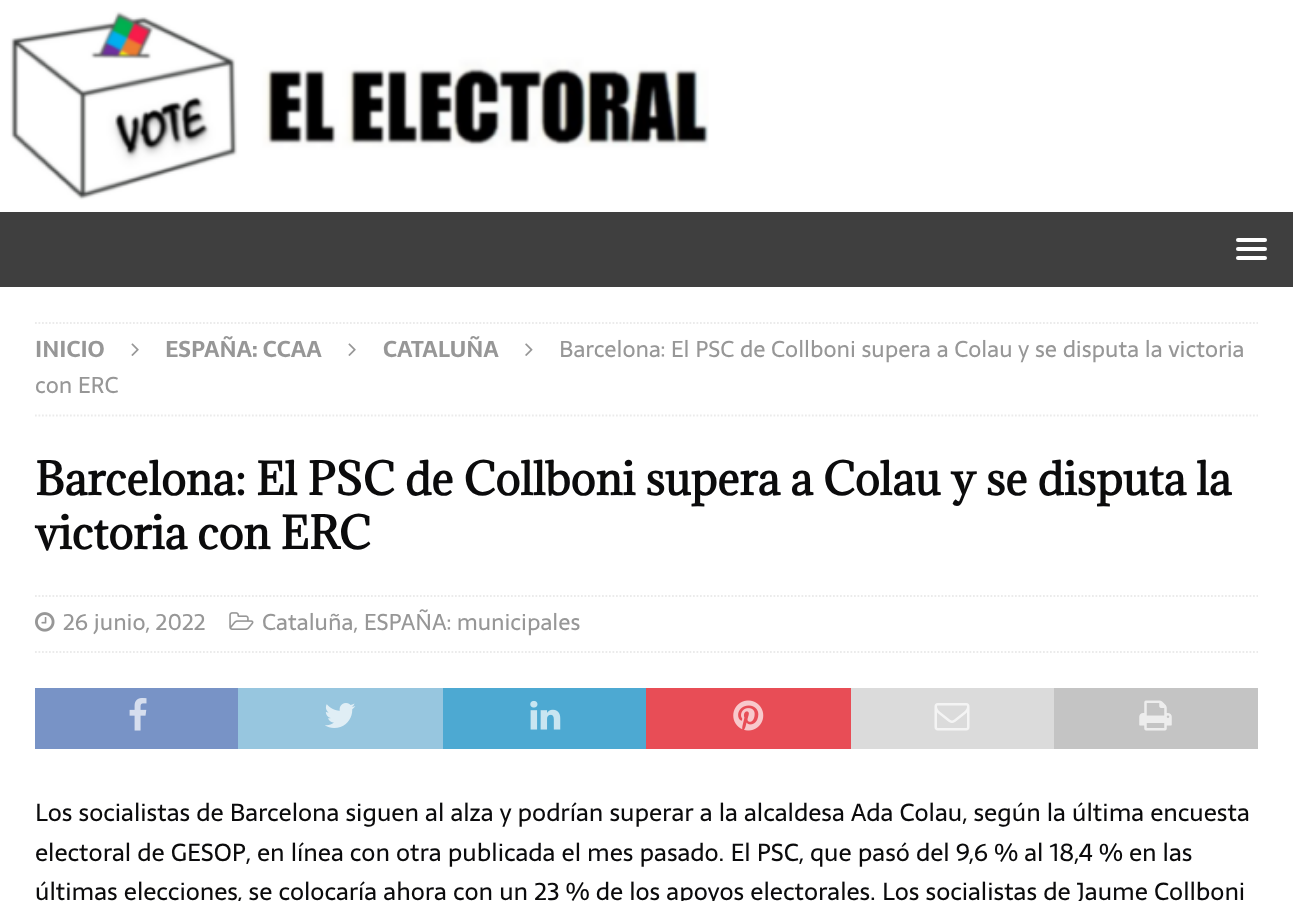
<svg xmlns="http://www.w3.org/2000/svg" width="1293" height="901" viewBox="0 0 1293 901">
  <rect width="100%" height="100%" fill="#fff"/>
  <image x="10" y="11" width="699" height="189" href="img/1.png"/>
  <path d="M0 212h1293v75H0z" fill="#3f3f3f"/>
  <rect x="1236" y="238" width="31" height="4" rx="2" fill="#fff"/>
  <rect x="1236" y="247" width="31" height="4" rx="2" fill="#fff"/>
  <rect x="1236" y="256" width="31" height="4" rx="2" fill="#fff"/>
  <path d="M35 323H1258" fill="none" stroke="#ebebeb" stroke-width="1.8" stroke-dasharray="1.75 1.75"/>
  <path d="M35 415.5H1258" fill="none" stroke="#ebebeb" stroke-width="1.8" stroke-dasharray="1.75 1.75"/>
  <image x="131" y="343" width="8" height="13" href="img/2.png"/>
  <image x="348" y="343" width="8" height="13" href="img/2.png"/>
  <image x="525" y="343" width="8" height="13" href="img/3.png"/>
  <path d="M35 596H1258" fill="none" stroke="#ebebeb" stroke-width="1.8" stroke-dasharray="1.75 1.75"/>
  <path d="M35 652H1258" fill="none" stroke="#ebebeb" stroke-width="1.8" stroke-dasharray="1.75 1.75"/>
  <image x="35" y="612" width="20" height="20" href="img/4.png"/>
  <image x="229" y="612" width="25" height="18" href="img/5.png"/>
  <path d="M35 688h203v61H35z" fill="#7893c6"/>
  <image x="129" y="698" width="18" height="33" href="img/6.png"/>
  <path d="M238 688h205v61H238z" fill="#97c6df"/>
  <image x="325" y="703" width="31" height="25" href="img/7.png"/>
  <path d="M443 688h203v61H443z" fill="#4da9d2"/>
  <image x="530" y="700" width="31" height="30" href="img/8.png"/>
  <path d="M646 688h205v61H646z" fill="#e84d56"/>
  <image x="733" y="700" width="31" height="31" href="img/9.png"/>
  <path d="M851 688h203v61H851z" fill="#dbdbdb"/>
  <image x="934" y="703" width="36" height="28" href="img/10.png"/>
  <path d="M1054 688h204v61H1054z" fill="#c4c4c4"/>
  <image x="1139" y="700" width="33" height="31" href="img/11.png"/>
  <g font-family="Sarala" font-size="22.75" font-weight="bold" fill="#979797">
    <text x="35" y="357">INICIO</text>
    <text x="165" y="357">ESPAÑA: CCAA</text>
    <text x="383" y="357">CATALUÑA</text>
  </g>
  <g font-family="Sarala" font-size="22.75" fill="#979797">
    <text x="559" y="357">Barcelona: El PSC de Collboni supera a Colau y se disputa la victoria</text>
    <text x="35" y="393">con ERC</text>
  </g>
  <g font-family="Adamina" font-size="42" font-weight="bold" fill="#0b0b0c">
    <text x="35" y="495">Barcelona: El PSC de Collboni supera a Colau y se disputa la</text>
    <text x="35" y="549">victoria con ERC</text>
  </g>
  <g font-family="Sarala" font-size="22.75" fill="#979797">
    <text x="63" y="630">26 junio, 2022</text>
    <text x="262" y="630">Cataluña, ESPAÑA: municipales</text>
  </g>
  <g font-family="Sarala" font-size="24.5" fill="#0b0b0c">
    <text x="35" y="821">Los socialistas de Barcelona siguen al alza y podrían superar a la alcaldesa Ada Colau, según la última encuesta</text>
    <text x="35" y="861">electoral de GESOP, en línea con otra publicada el mes pasado. El PSC, que pasó del 9,6 % al 18,4 % en las</text>
    <text x="35" y="900">últimas elecciones, se colocaría ahora con un 23 % de los apoyos electorales. Los socialistas de Jaume Collboni</text>
  </g>
</svg>
